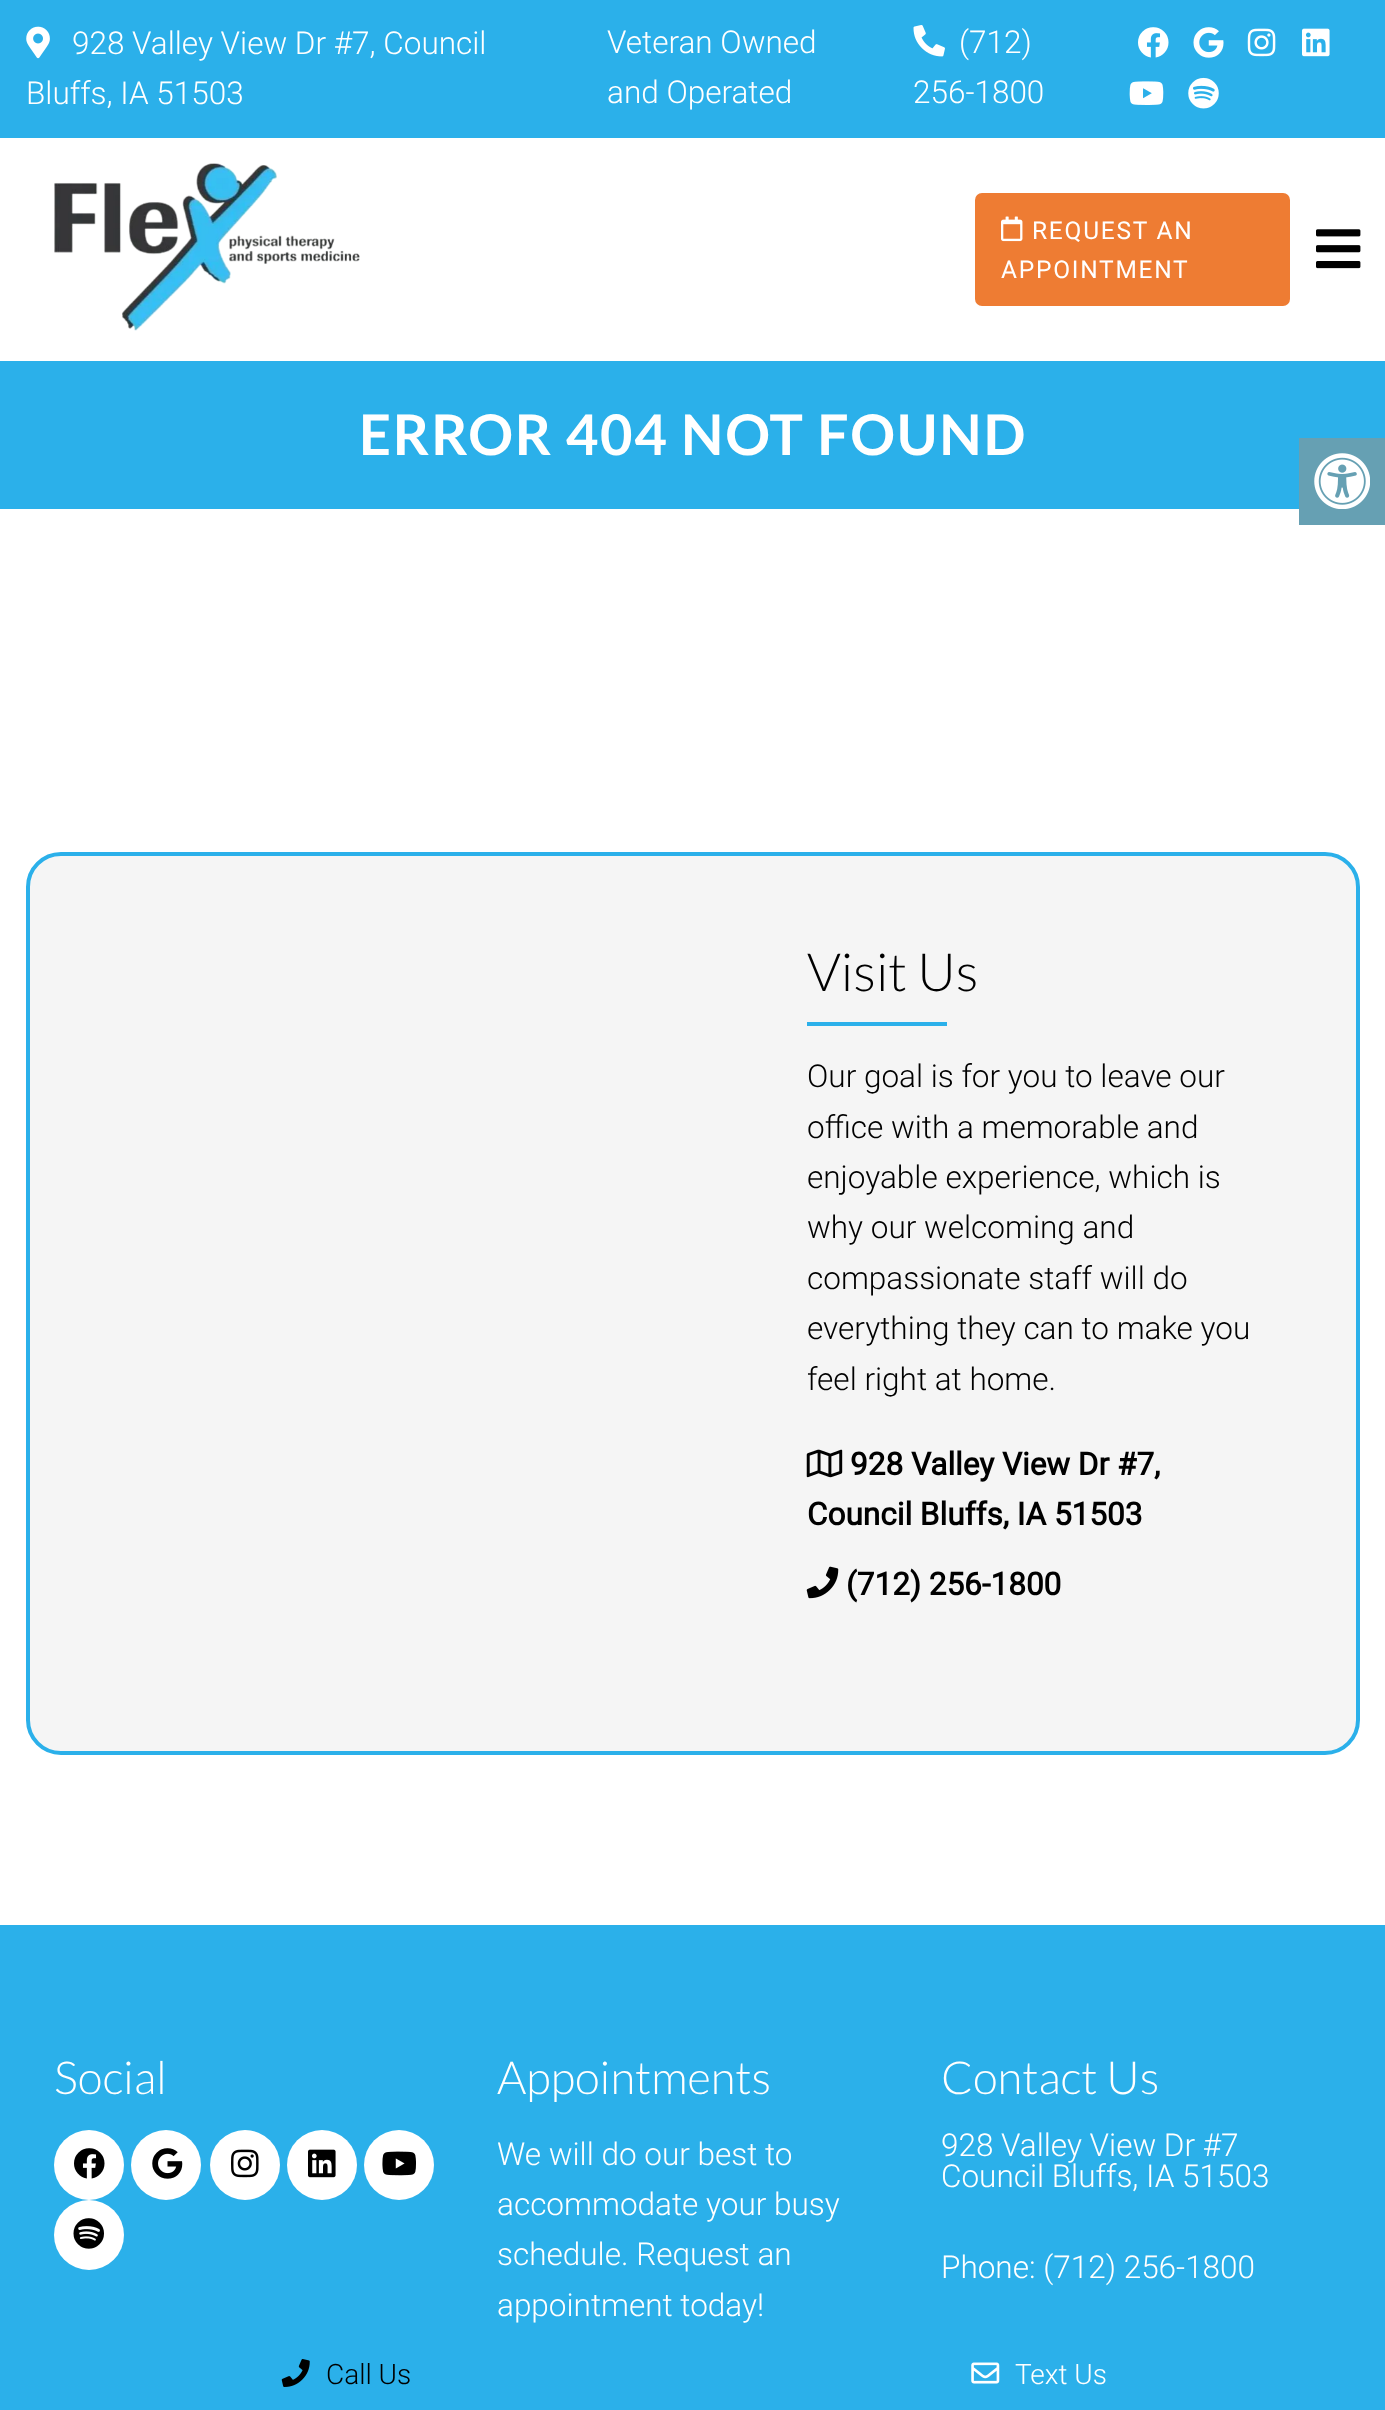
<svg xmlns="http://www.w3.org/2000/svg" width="1385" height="2410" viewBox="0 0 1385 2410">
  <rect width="100%" height="100%" fill="#fff"/>
  <path d="M0 0h1385v138H0z" fill="#2bb0ea"/>
  <image x="26" y="26" width="24" height="33" href="img/1.png"/>
  <image x="913" y="25" width="32" height="32" href="img/2.png"/>
  <image x="1138" y="27" width="31" height="31" href="img/3.png"/>
  <image x="1193" y="27" width="31" height="31" href="img/4.png"/>
  <image x="1247" y="28" width="29" height="29" href="img/5.png"/>
  <image x="1302" y="28" width="28" height="29" href="img/6.png"/>
  <image x="1129" y="81" width="35" height="24" href="img/7.png"/>
  <image x="1188" y="77" width="31" height="32" href="img/8.png"/>
  <image x="54" y="163" width="306" height="168" href="img/9.png"/>
  <rect x="975" y="193" width="315" height="113" rx="7" fill="#ee7c33"/>
  <image x="1001" y="216" width="22" height="26" href="img/10.png"/>
  <image x="1316" y="229" width="45" height="40" href="img/11.png"/>
  <path d="M0 361h1385v148H0z" fill="#2bb0ea"/>
  <rect x="28" y="854" width="1330" height="899" rx="33" fill="#f5f5f5" stroke="#2bb0ea" stroke-width="4"/>
  <path d="M807 1022h140v4H807z" fill="#2bb0ea"/>
  <image x="806" y="1449" width="37" height="29" href="img/12.png"/>
  <image x="806" y="1566" width="33" height="33" href="img/13.png"/>
  <path d="M0 1925h1385v413H0z" fill="#2bb0ea"/>
  <circle cx="89" cy="2165" r="35" fill="#fff"/>
  <image x="74" y="2148" width="31" height="31" href="img/14.png"/>
  <circle cx="166" cy="2165" r="35" fill="#fff"/>
  <image x="152" y="2148" width="31" height="31" href="img/15.png"/>
  <circle cx="245" cy="2165" r="35" fill="#fff"/>
  <image x="231" y="2149" width="28" height="29" href="img/16.png"/>
  <circle cx="322" cy="2165" r="35" fill="#fff"/>
  <image x="308" y="2149" width="28" height="29" href="img/17.png"/>
  <circle cx="399" cy="2165" r="35" fill="#fff"/>
  <image x="382" y="2151" width="34" height="25" href="img/18.png"/>
  <circle cx="89" cy="2235" r="35" fill="#fff"/>
  <image x="73" y="2218" width="31" height="31" href="img/19.png"/>
  <path d="M1299 438h86v87H1299z" fill="#66a0b3"/>
  <image x="1314" y="453" width="56" height="56" href="img/20.png"/>
  <path d="M0 2338h1385v72H0z" fill="#2bb0ea"/>
  <image x="281" y="2359" width="29" height="28" href="img/21.png"/>
  <image x="971" y="2362" width="29" height="22" href="img/22.png"/>
  <g font-family="Roboto" font-size="31.5" font-weight="300" fill="#fff">
    <text x="72" y="54">928 Valley View Dr #7, Council</text>
    <text x="26" y="104">Bluffs, IA 51503</text>
    <text x="607" y="53">Veteran Owned</text>
    <text x="607" y="103">and Operated</text>
    <text x="959" y="53">(712)</text>
    <text x="913" y="103">256-1800</text>
  </g>
  <g font-family="Roboto" font-size="24.5" letter-spacing="1.75" fill="#fff">
    <text x="1032" y="239">REQUEST AN</text>
    <text x="1001" y="278">APPOINTMENT</text>
  </g>
  <text x="359" y="455" font-family="Lato" font-size="56" font-weight="bold" letter-spacing="1.75" fill="#fff">ERROR 404 NOT FOUND</text>
  <text x="807" y="991" font-family="Lato" font-size="52.5" font-weight="300" fill="#000">Visit Us</text>
  <g font-family="Roboto" font-size="31.5" font-weight="300" fill="#000">
    <text x="807" y="1087">Our goal is for you to leave our</text>
    <text x="807" y="1138">office with a memorable and</text>
    <text x="807" y="1188">enjoyable experience, which is</text>
    <text x="807" y="1238">why our welcoming and</text>
    <text x="807" y="1289">compassionate staff will do</text>
    <text x="807" y="1339">everything they can to make you</text>
    <text x="807" y="1390">feel right at home.</text>
  </g>
  <g font-family="Roboto" font-size="31.5" font-weight="bold" fill="#000">
    <text x="850" y="1475">928 Valley View Dr #7,</text>
    <text x="807" y="1525">Council Bluffs, IA 51503</text>
    <text x="846" y="1595">(712) 256-1800</text>
  </g>
  <g font-family="Lato" font-size="45.5" font-weight="300" fill="#fff">
    <text x="54" y="2094">Social</text>
    <text x="497" y="2094">Appointments</text>
  </g>
  <g font-family="Roboto" font-size="31.5" font-weight="300" fill="#fff">
    <text x="497" y="2165">We will do our best to</text>
    <text x="497" y="2215">accommodate your busy</text>
    <text x="497" y="2265">schedule. Request an</text>
    <text x="497" y="2316">appointment today!</text>
  </g>
  <text x="941" y="2094" font-family="Lato" font-size="45.5" font-weight="300" fill="#fff">Contact Us</text>
  <g font-family="Roboto" font-size="31.5" font-weight="300" fill="#fff">
    <text x="941" y="2156">928 Valley View Dr #7</text>
    <text x="941" y="2187">Council Bluffs, IA 51503</text>
    <text x="941" y="2278">Phone: (712) 256-1800</text>
  </g>
  <text x="326" y="2384" font-family="Roboto" font-size="28" font-weight="300" fill="#000">Call Us</text>
  <text x="1015" y="2384" font-family="Roboto" font-size="28" font-weight="300" fill="#fff">Text Us</text>
</svg>
